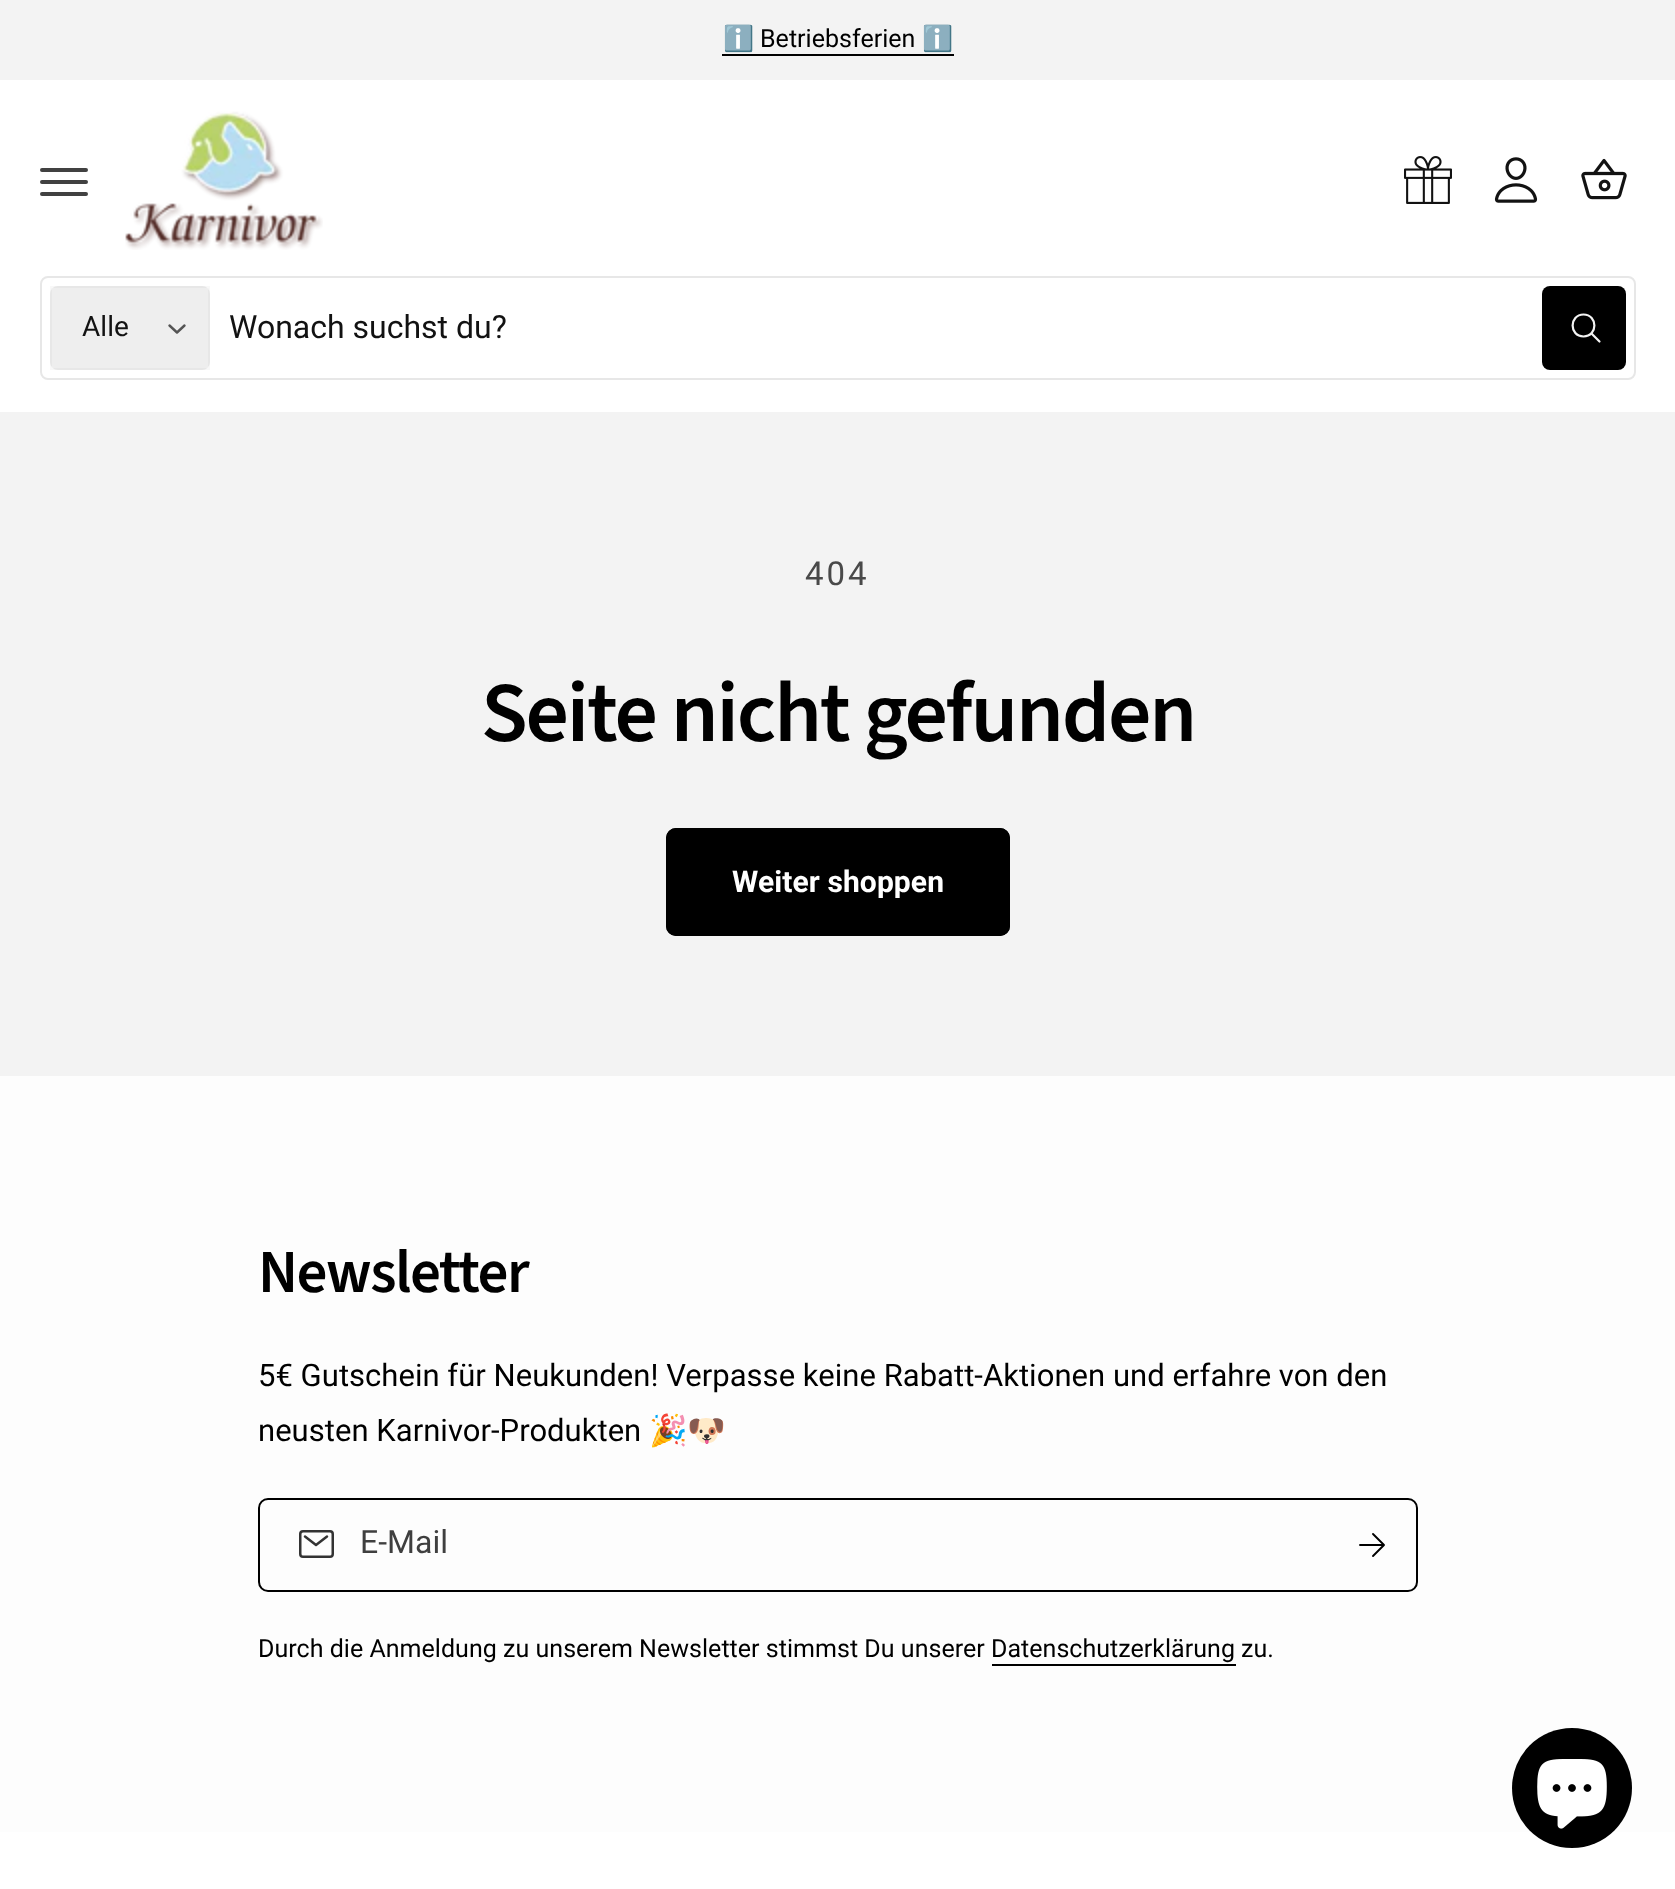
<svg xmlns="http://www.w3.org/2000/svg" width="1675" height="1889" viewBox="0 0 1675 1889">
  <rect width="100%" height="100%" fill="#f3f3f3"/>
  <path d="M722 54h232v2H722z" fill="#000"/>
  <path d="M0 80h1675v332H0z" fill="#fff"/>
  <path d="M42 170H86M42 182H86M42 194H86" fill="none" stroke="#414141" stroke-width="4" stroke-linecap="round"/>
  <image x="125" y="111" width="198" height="139" href="img/1.png"/>
  <image x="1404" y="156" width="48" height="48" href="img/2.png"/>
  <image x="1494" y="157" width="44" height="46" href="img/3.png"/>
  <image x="1581" y="158" width="46" height="42" href="img/4.png"/>
  <rect x="50" y="286" width="160" height="84" rx="8" fill="#eee"/>
  <path d="M51 287h158v82H51z" fill="none" stroke="#12121208" stroke-width="2"/>
  <path d="M169.5 325.5L177 332.5L184.5 325.5" fill="none" stroke="#545454" stroke-width="2.4" stroke-linecap="round" stroke-linejoin="round"/>
  <rect x="1542" y="286" width="84" height="84" rx="8" fill="#000"/>
  <path d="M1583.5 314.5C1569 314.5 1569 336.5 1583.5 336.5C1598 336.5 1598 314.5 1583.5 314.5Z" fill="none" stroke="#f3f3f3" stroke-width="2.2"/>
  <path d="M1592 334L1599.5 341.5" fill="none" stroke="#f3f3f3" stroke-width="2.2" stroke-linecap="round"/>
  <rect x="41" y="277" width="1594" height="102" rx="7" fill="none" stroke="#e7e7e7" stroke-width="2"/>
  <rect x="666" y="828" width="344" height="108" rx="10" fill="#000"/>
  <rect x="667" y="829" width="342" height="106" rx="9" fill="none" stroke="#000" stroke-width="2"/>
  <path d="M0 1076h1675v756H0z" fill="#fdfdfd"/>
  <rect x="300.25" y="1531.25" width="32.5" height="25.5" rx="2.75" fill="none" stroke="#333" stroke-width="2.5"/>
  <path d="M305 1536.5L316 1545L327 1536.5" fill="none" stroke="#333" stroke-width="2.5" stroke-linecap="round" stroke-linejoin="round"/>
  <rect x="259" y="1499" width="1158" height="92" rx="9" fill="none" stroke="#000" stroke-width="2"/>
  <path d="M1373 1534L1384 1545L1373 1556M1382.5 1545H1360" fill="none" stroke="#000" stroke-width="1.9" stroke-linecap="round" stroke-linejoin="round"/>
  <path d="M992 1664h244v2H992z" fill="#000"/>
  <path d="M0 1832h1675v57H0z" fill="#fff"/>
  <circle cx="1572" cy="1788" r="60" fill="#000"/>
  <image x="1537" y="1759" width="70" height="70" href="img/5.png"/>
  <text x="723" y="47" font-family="Noto Color Emoji" font-size="25" letter-spacing="0.03" fill="#000">ℹ️</text>
  <text x="760" y="47" font-family="Roboto" font-size="25" letter-spacing="0.03" fill="#000">Betriebsferien</text>
  <text x="922" y="47" font-family="Noto Color Emoji" font-size="25" letter-spacing="0.03" fill="#000">ℹ️</text>
  <text x="82" y="336" font-family="Roboto" font-size="28" letter-spacing="0.03" fill="#121212">Alle</text>
  <text x="229" y="338" font-family="Roboto" font-size="32" fill="#121212">Wonach suchst du?</text>
  <text x="805" y="585" font-family="Roboto" font-size="33" letter-spacing="3" fill="#494949">404</text>
  <text x="481" y="741" font-family="Source Sans Pro" font-size="85.75" font-weight="600" letter-spacing="-2.2" fill="#000">Seite nicht gefunden</text>
  <text x="732" y="892" font-family="Roboto" font-size="30" font-weight="bold" letter-spacing="0.1" fill="#fff">Weiter shoppen</text>
  <text x="258" y="1292" font-family="Source Sans Pro" font-size="61" font-weight="600" letter-spacing="-1.5" fill="#000">Newsletter</text>
  <g font-family="Roboto" font-size="31" letter-spacing="0.03" fill="#000">
    <text x="258" y="1386">5€ Gutschein für Neukunden! Verpasse keine Rabatt-Aktionen und erfahre von den</text>
    <text x="258" y="1441">neusten Karnivor-Produkten</text>
  </g>
  <text x="649" y="1441" font-family="Noto Color Emoji" font-size="31" letter-spacing="0.03" fill="#000">🎉🐶</text>
  <text x="360" y="1553" font-family="Roboto" font-size="32" fill="#3f3f3f">E-Mail</text>
  <g font-family="Roboto" font-size="25" letter-spacing="0.03" fill="#000">
    <text x="258" y="1657">Durch die Anmeldung zu unserem Newsletter stimmst Du unserer Datenschutzerklärung</text>
    <text x="1241" y="1657">zu.</text>
  </g>
</svg>
